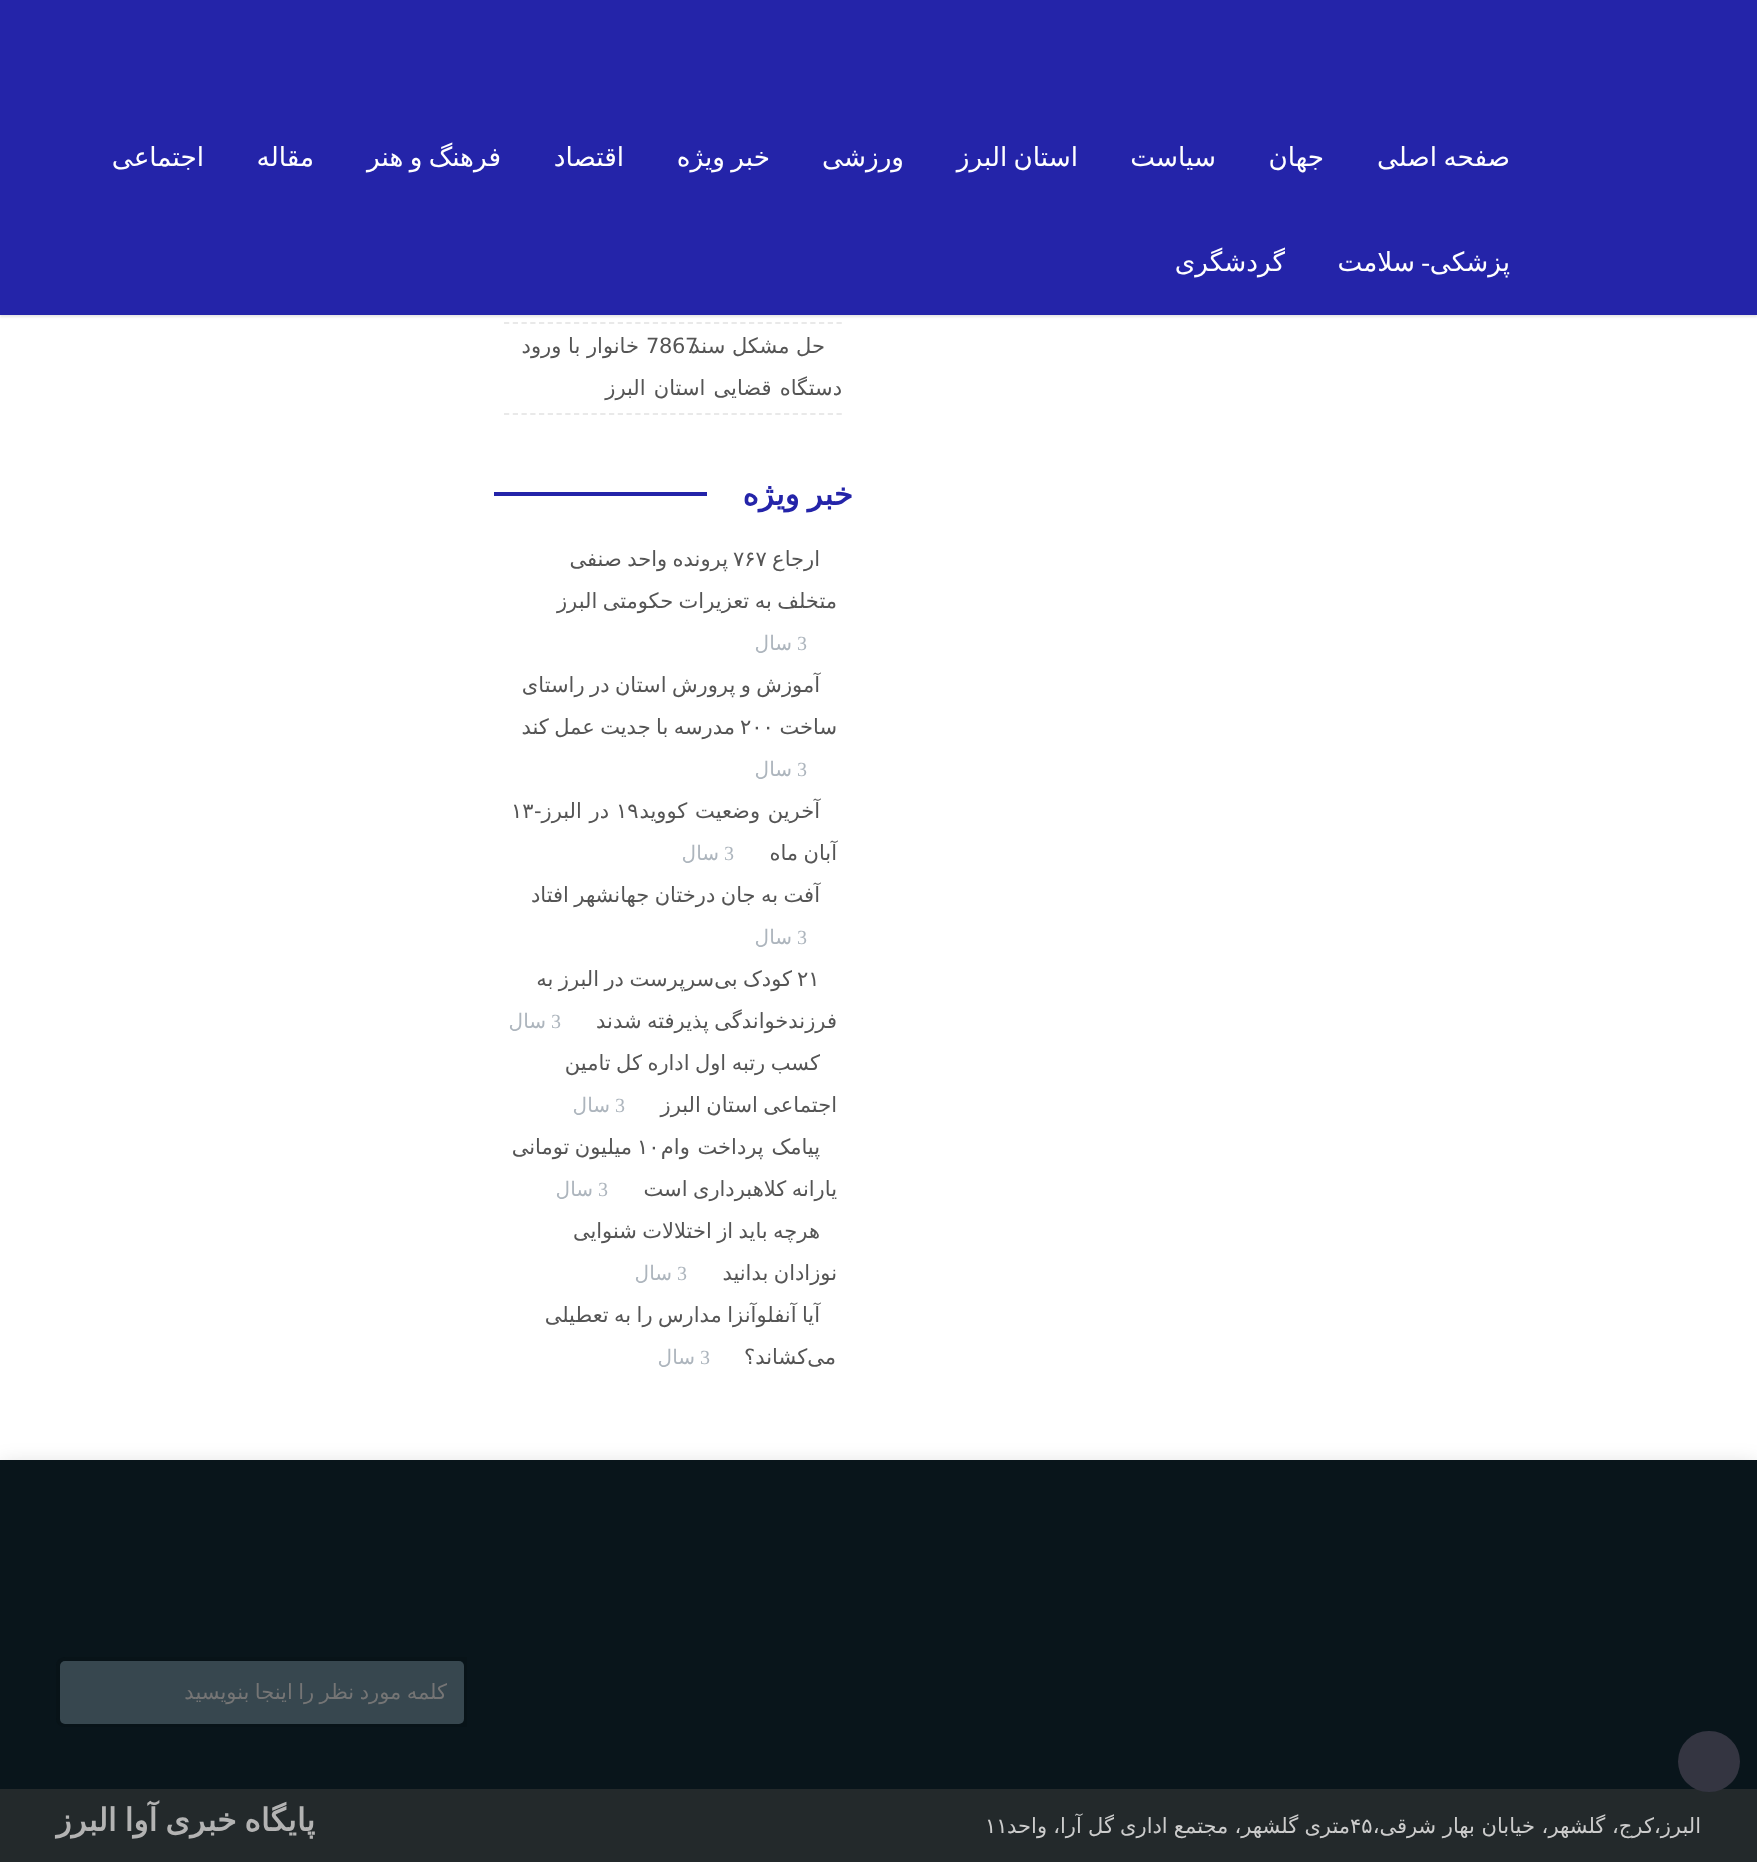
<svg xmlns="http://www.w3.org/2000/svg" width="1757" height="1862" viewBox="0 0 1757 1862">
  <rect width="100%" height="100%" fill="#fff"/>
  <path d="M0 1465h1757v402H0z" fill="#00000029" filter="blur(10.5px)"/>
  <path d="M0 1460h1757v329H0z" fill="#09151b"/>
  <path d="M0 1789h1757v73H0z" fill="#23292b"/>
  <rect x="1678" y="1731" width="62" height="61" rx="30.5" fill="#343541"/>
  <path d="M0 2h1757v315H0z" fill="#0000001a" filter="blur(1px)"/>
  <path d="M0 0h1757v315H0z" fill="#2424a9"/>
  <path d="M504 323H842" fill="none" stroke="#e9e9e9" stroke-width="1.8" stroke-dasharray="5.25 3.5"/>
  <path d="M504 414H842" fill="none" stroke="#e9e9e9" stroke-width="1.8" stroke-dasharray="5.25 3.5"/>
  <path d="M494 492h213v4H494z" fill="#2424a9"/>
  <path d="M65 1659H465V1725H65C61 1725 58 1722 58 1718V1666C58 1662 61 1659 65 1659Z" fill="none" stroke="#081318" stroke-width="4"/>
  <rect x="60" y="1661" width="404" height="63" rx="5" fill="#37474f"/>
  <g font-family="DejaVu Sans" font-size="26.25" direction="rtl" fill="#fff">
    <text x="1510" y="166" word-spacing="-2">صفحه اصلی</text>
    <text x="1324" y="166">جهان</text>
    <text x="1216" y="166">سیاست</text>
    <text x="1078" y="166" word-spacing="-2">استان البرز</text>
    <text x="904" y="166">ورزشی</text>
    <text x="770" y="166" word-spacing="-2">خبر ویژه</text>
    <text x="624" y="166">اقتصاد</text>
    <text x="501" y="166" word-spacing="-2">فرهنگ و هنر</text>
    <text x="314" y="166">مقاله</text>
    <text x="204" y="166">اجتماعی</text>
    <text x="1510" y="271">پزشکی</text>
  </g>
  <text x="1430" y="271" font-family="Liberation Serif" font-size="26.25" direction="rtl" fill="#fff">-</text>
  <g font-family="DejaVu Sans" font-size="26.25" direction="rtl" fill="#fff">
    <text x="1415" y="271">سلامت</text>
    <text x="1285" y="271">گردشگری</text>
  </g>
  <text x="646" y="353" font-family="DejaVu Sans" font-size="21" letter-spacing="-0.35" fill="#555">7867</text>
  <g font-family="DejaVu Sans" font-size="21" letter-spacing="-0.35" direction="rtl" fill="#555">
    <text x="825" y="353">حل مشکل سند</text>
    <text x="639" y="353">خانوار با ورود</text>
    <text x="842" y="395" word-spacing="1.5">دستگاه قضایی استان البرز</text>
  </g>
  <text x="853" y="505" word-spacing="-2" font-family="DejaVu Sans" font-size="31" font-weight="bold" direction="rtl" fill="#2424a9">خبر ویژه</text>
  <text x="820" y="566" font-family="DejaVu Sans" font-size="21" direction="rtl" fill="#555">ارجاع</text>
  <text x="733" y="566" font-family="DejaVu Sans" font-size="21" fill="#555">۷۶۷</text>
  <g font-family="DejaVu Sans" font-size="21" direction="rtl" fill="#555">
    <text x="728" y="566" word-spacing="-1.25">پرونده واحد صنفی</text>
    <text x="837" y="608" word-spacing="-1.25">متخلف به تعزیرات حکومتی البرز</text>
  </g>
  <text x="797" y="650" font-family="Liberation Serif" font-size="20" fill="#adb5bd">3</text>
  <text x="792" y="650" font-family="DejaVu Sans" font-size="20" direction="rtl" fill="#adb5bd">سال</text>
  <g font-family="DejaVu Sans" font-size="21" direction="rtl" fill="#555">
    <text x="820" y="692" word-spacing="-1.25">آموزش و پرورش استان در راستای</text>
    <text x="837" y="734">ساخت</text>
  </g>
  <text x="740" y="734" font-family="DejaVu Sans" font-size="21" fill="#555">۲۰۰</text>
  <text x="735" y="734" word-spacing="-1.25" font-family="DejaVu Sans" font-size="21" direction="rtl" fill="#555">مدرسه با جدیت عمل کند</text>
  <text x="797" y="776" font-family="Liberation Serif" font-size="20" fill="#adb5bd">3</text>
  <text x="792" y="776" font-family="DejaVu Sans" font-size="20" direction="rtl" fill="#adb5bd">سال</text>
  <text x="820" y="818" word-spacing="1" font-family="DejaVu Sans" font-size="21" direction="rtl" fill="#555">آخرین وضعیت کووید</text>
  <text x="616" y="818" font-family="DejaVu Sans" font-size="21" fill="#555">۱۹</text>
  <text x="609" y="818" word-spacing="1" font-family="DejaVu Sans" font-size="21" direction="rtl" fill="#555">در البرز-</text>
  <text x="511" y="818" font-family="DejaVu Sans" font-size="21" fill="#555">۱۳</text>
  <text x="837" y="860" word-spacing="-1.25" font-family="DejaVu Sans" font-size="21" direction="rtl" fill="#555">آبان ماه</text>
  <text x="724" y="860" font-family="Liberation Serif" font-size="20" fill="#adb5bd">3</text>
  <text x="719" y="860" font-family="DejaVu Sans" font-size="20" direction="rtl" fill="#adb5bd">سال</text>
  <text x="820" y="902" word-spacing="-1.25" font-family="DejaVu Sans" font-size="21" direction="rtl" fill="#555">آفت به جان درختان جهانشهر افتاد</text>
  <text x="797" y="944" font-family="Liberation Serif" font-size="20" fill="#adb5bd">3</text>
  <text x="792" y="944" font-family="DejaVu Sans" font-size="20" direction="rtl" fill="#adb5bd">سال</text>
  <text x="792" y="986" word-spacing="-1.25" font-family="DejaVu Sans" font-size="21" direction="rtl" fill="#555">کودک بی‌سرپرست در البرز به</text>
  <text x="797" y="986" font-family="DejaVu Sans" font-size="21" fill="#555">۲۱</text>
  <text x="837" y="1028" word-spacing="-1.25" font-family="DejaVu Sans" font-size="21" direction="rtl" fill="#555">فرزندخواندگی پذیرفته شدند</text>
  <text x="551" y="1028" font-family="Liberation Serif" font-size="20" fill="#adb5bd">3</text>
  <text x="546" y="1028" font-family="DejaVu Sans" font-size="20" direction="rtl" fill="#adb5bd">سال</text>
  <g font-family="DejaVu Sans" font-size="21" direction="rtl" fill="#555">
    <text x="820" y="1070" word-spacing="-1.25">کسب رتبه اول اداره کل تامین</text>
    <text x="837" y="1112" word-spacing="-1.25">اجتماعی استان البرز</text>
  </g>
  <text x="615" y="1112" font-family="Liberation Serif" font-size="20" fill="#adb5bd">3</text>
  <text x="610" y="1112" font-family="DejaVu Sans" font-size="20" direction="rtl" fill="#adb5bd">سال</text>
  <text x="820" y="1154" word-spacing="1" font-family="DejaVu Sans" font-size="21" direction="rtl" fill="#555">پیامک پرداخت وام</text>
  <text x="637" y="1154" font-family="DejaVu Sans" font-size="21" fill="#555">۱۰</text>
  <g font-family="DejaVu Sans" font-size="21" direction="rtl" fill="#555">
    <text x="632" y="1154" word-spacing="-1.25">میلیون تومانی</text>
    <text x="837" y="1196" word-spacing="-1.25">یارانه کلاهبرداری است</text>
  </g>
  <text x="598" y="1196" font-family="Liberation Serif" font-size="20" fill="#adb5bd">3</text>
  <text x="593" y="1196" font-family="DejaVu Sans" font-size="20" direction="rtl" fill="#adb5bd">سال</text>
  <g font-family="DejaVu Sans" font-size="21" direction="rtl" fill="#555">
    <text x="820" y="1238" word-spacing="-1.25">هرچه باید از اختلالات شنوایی</text>
    <text x="837" y="1280" word-spacing="-1.25">نوزادان بدانید</text>
  </g>
  <text x="677" y="1280" font-family="Liberation Serif" font-size="20" fill="#adb5bd">3</text>
  <text x="672" y="1280" font-family="DejaVu Sans" font-size="20" direction="rtl" fill="#adb5bd">سال</text>
  <g font-family="DejaVu Sans" font-size="21" direction="rtl" fill="#555">
    <text x="820" y="1322" word-spacing="-1.25">آیا آنفلوآنزا مدارس را به تعطیلی</text>
    <text x="836" y="1364">می‌کشاند؟</text>
  </g>
  <text x="700" y="1364" font-family="Liberation Serif" font-size="20" fill="#adb5bd">3</text>
  <text x="695" y="1364" font-family="DejaVu Sans" font-size="20" direction="rtl" fill="#adb5bd">سال</text>
  <text x="447" y="1699" word-spacing="-1.25" font-family="DejaVu Sans" font-size="21" direction="rtl" fill="#757575">كلمه مورد نظر را اينجا بنويسيد</text>
  <g font-family="DejaVu Sans" font-size="21" direction="rtl" fill="#ccc">
    <text x="1701" y="1833">البرز،‌کرج، گلشهر، خیابان بهار شرقی،</text>
    <text x="1350" y="1833" word-spacing="-0.5">متری گلشهر، مجتمع اداری گل آرا، واحد</text>
  </g>
  <g font-family="DejaVu Sans" font-size="21" fill="#ccc">
    <text x="1350" y="1833">۴۵</text>
    <text x="985" y="1833">۱۱</text>
  </g>
  <text x="315" y="1831" word-spacing="-2" font-family="DejaVu Sans" font-size="31.5" font-weight="bold" direction="rtl" fill="#b3b3b3">پایگاه خبری آوا البرز</text>
</svg>
